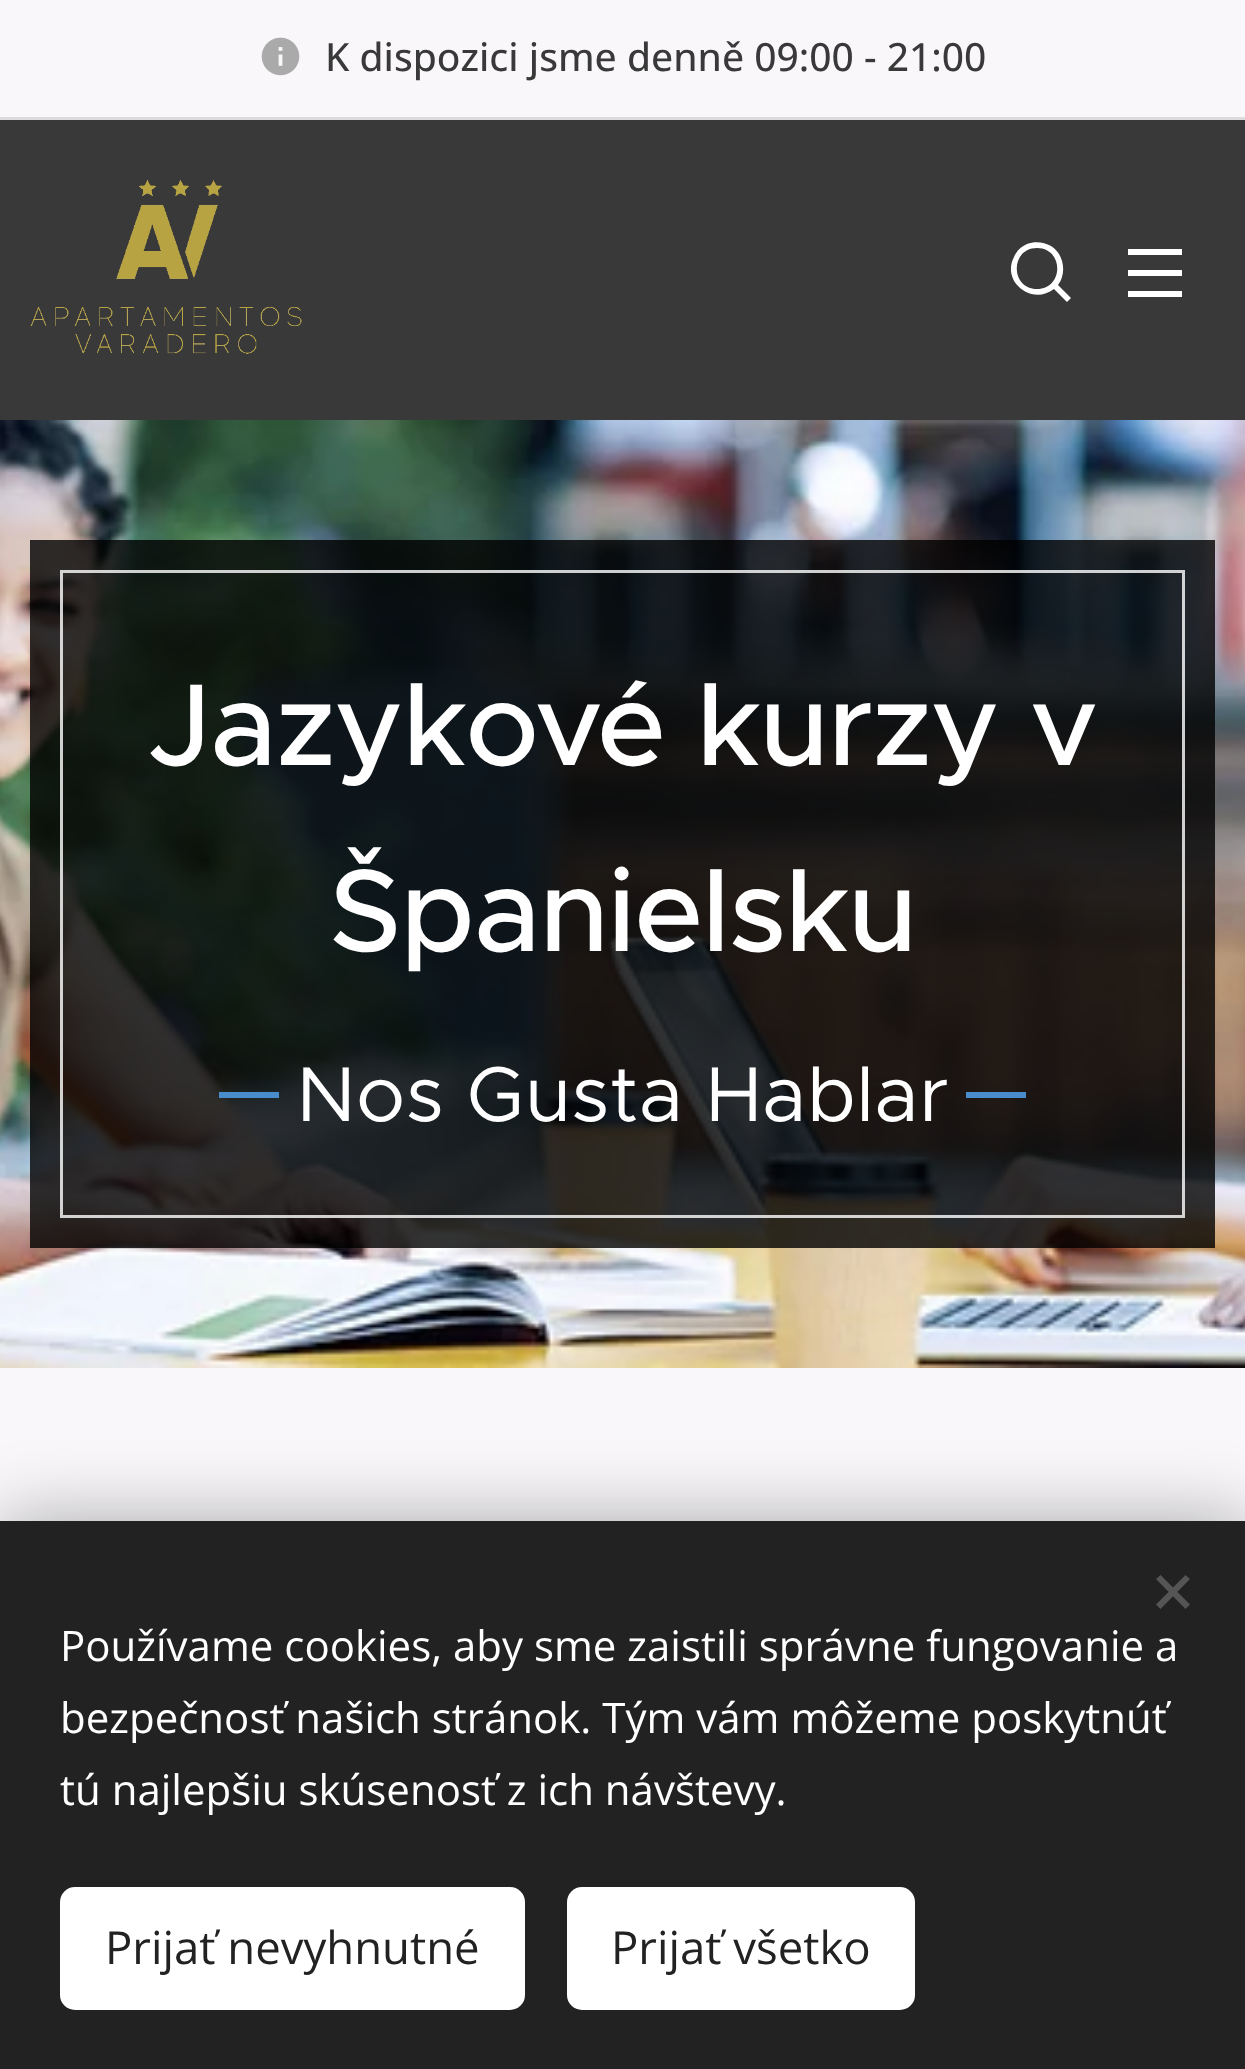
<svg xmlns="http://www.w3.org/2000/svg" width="1245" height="2069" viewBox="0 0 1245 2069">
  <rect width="100%" height="100%" fill="#fff"/>
  <path d="M0 0h1245v117H0z" fill="#f9f7fa"/>
  <image x="261" y="37" width="39" height="39" href="img/1.png"/>
  <path d="M0 117h1245v3H0z" fill="#dbdbdb"/>
  <path d="M0 120h1245v300H0z" fill="#393939"/>
  <image x="30" y="180" width="272" height="174" href="img/2.png"/>
  <path d="M1071 298L1058 285C1067 273 1064 254 1051 246C1044 242 1035 241 1027 244C1021 247 1016 251 1014 257C1001 282 1032 306 1054 289L1067 302ZM1037 289C1010 289 1010 248 1037 248C1064 248 1064 289 1037 289Z" fill="#fff"/>
  <path d="M1128 270h54v6H1128z" fill="#fff"/>
  <path d="M1128 249h54v6H1128z" fill="#fff"/>
  <path d="M1128 291h54v6H1128z" fill="#fff"/>
  <image x="0" y="420" width="1245" height="948" href="img/3.png"/>
  <path d="M30 540h1185v708H30z" fill="#000000cc"/>
  <path d="M61.5 571.5h1122v645H61.5z" fill="none" stroke="#ffffffcc" stroke-width="3"/>
  <path d="M219 1092h60v6H219z" fill="#488ccb"/>
  <path d="M966 1092h60v6H966z" fill="#488ccb"/>
  <path d="M0 1368h1245v153H0z" fill="#f9f7fa"/>
  <path d="M0 1521h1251v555H0z" fill="#00000054" filter="blur(37.5px)"/>
  <path d="M0 1521h1245v548H0z" fill="#222"/>
  <path d="M1156 1604.5L1185.5 1575L1190 1579L1160.5 1609Z" fill="#555"/>
  <path d="M1160.5 1575L1190 1604.5L1185.5 1609L1156 1579Z" fill="#555"/>
  <rect x="60" y="1887" width="465" height="123" rx="15" fill="#fff"/>
  <rect x="567" y="1887" width="348" height="123" rx="15" fill="#fff"/>
  <text x="325" y="71" font-family="Open Sans" font-size="39" font-weight="500" fill="#393939">K dispozici jsme denně 09:00 - 21:00</text>
  <g font-family="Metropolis" font-size="117" font-weight="500" letter-spacing="-1.75" fill="#fff">
    <text x="148" y="765">Jazykové kurzy v</text>
    <text x="329" y="951">Španielsku</text>
  </g>
  <text x="296" y="1121" font-family="Metropolis" font-size="78" fill="#fff">Nos Gusta Hablar</text>
  <g font-family="Open Sans" font-size="42" fill="#fff">
    <text x="60" y="1661">Používame cookies, aby sme zaistili správne fungovanie a</text>
    <text x="60" y="1733">bezpečnosť našich stránok. Tým vám môžeme poskytnúť</text>
    <text x="60" y="1805">tú najlepšiu skúsenosť z ich návštevy.</text>
  </g>
  <g font-family="Open Sans" font-size="45.5" fill="#222">
    <text x="105" y="1964">Prijať nevyhnutné</text>
    <text x="611" y="1964">Prijať všetko</text>
  </g>
</svg>
